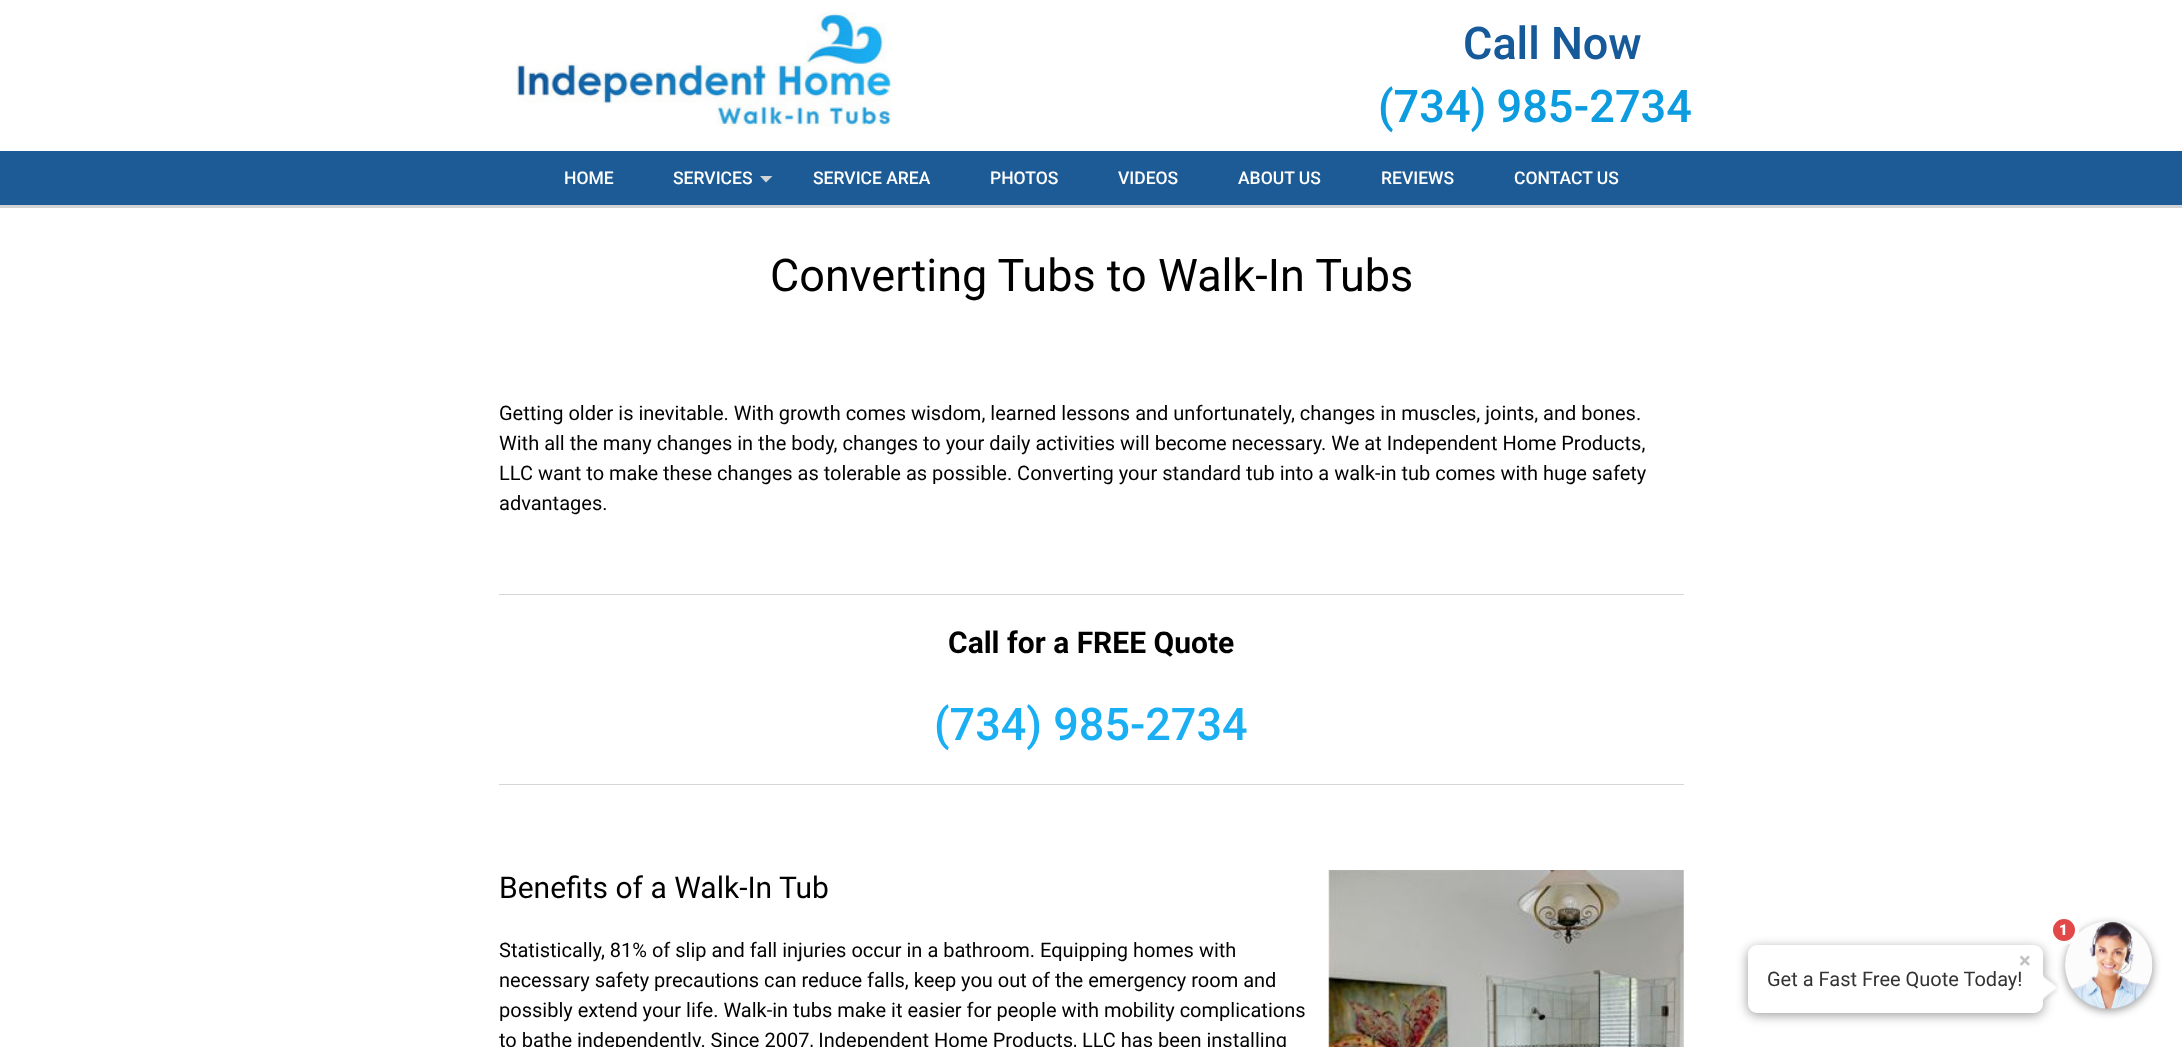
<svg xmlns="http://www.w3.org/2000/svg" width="2182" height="1047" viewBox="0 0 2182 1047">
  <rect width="100%" height="100%" fill="#fff"/>
  <path d="M0 205V208H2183V3H2182V205Z" fill="#d3d3d3"/>
  <image x="516" y="12" width="376" height="115" href="img/1.png"/>
  <path d="M0 151h2182v54H0z" fill="#1c5b96"/>
  <path d="M760 176H772.5L766 182.5Z" fill="#d2d3d4"/>
  <path d="M499 594h1185v1H499z" fill="#d6d6d6"/>
  <path d="M499 784h1185v1H499z" fill="#d6d6d6"/>
  <image x="1328" y="870" width="356" height="177" href="img/2.png"/>
  <rect x="2065" y="924" width="88" height="87" rx="43.5" fill="#00000066" filter="blur(4px)"/>
  <image x="2065" y="921" width="88" height="89" href="img/3.png"/>
  <rect x="1748" y="948" width="295" height="67" rx="9" fill="#00000066" filter="blur(6px)"/>
  <circle cx="2064" cy="930" r="13" fill="#e24848" stroke="#fff" stroke-width="4"/>
  <rect x="1748" y="945" width="295" height="68" rx="9" fill="#fff"/>
  <image x="2043" y="975" width="16" height="25" href="img/4.png"/>
  <text x="1463" y="59" font-family="'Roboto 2'" font-size="45" font-weight="500" fill="#175a99">Call Now</text>
  <text x="1378" y="122" word-spacing="-1" font-family="'Roboto 2'" font-size="45" font-weight="500" fill="#0c9cdf">(734) 985-2734</text>
  <g font-family="Roboto" font-size="17.5" font-weight="500" fill="#fff">
    <text x="564" y="184">HOME</text>
    <text x="673" y="184">SERVICES</text>
    <text x="813" y="184">SERVICE AREA</text>
    <text x="990" y="184">PHOTOS</text>
    <text x="1118" y="184">VIDEOS</text>
    <text x="1238" y="184">ABOUT US</text>
    <text x="1381" y="184">REVIEWS</text>
    <text x="1514" y="184">CONTACT US</text>
  </g>
  <text x="770" y="291" font-family="Roboto" font-size="45" fill="#000">Converting Tubs to Walk-In Tubs</text>
  <g font-family="Roboto" font-size="20" fill="#000">
    <text x="499" y="420">Getting older is inevitable. With growth comes wisdom, learned lessons and unfortunately, changes in muscles, joints, and bones.</text>
    <text x="499" y="450">With all the many changes in the body, changes to your daily activities will become necessary. We at Independent Home Products,</text>
    <text x="499" y="480">LLC want to make these changes as tolerable as possible. Converting your standard tub into a walk-in tub comes with huge safety</text>
    <text x="499" y="510">advantages.</text>
  </g>
  <text x="948" y="653" font-family="Roboto" font-size="30" font-weight="bold" fill="#000">Call for a FREE Quote</text>
  <text x="934" y="740" font-family="Roboto" font-size="45" font-weight="500" fill="#1aaff3">(734) 985-2734</text>
  <text x="499" y="898" font-family="Roboto" font-size="30" fill="#000">Benefits of a Walk-In Tub</text>
  <g font-family="Roboto" font-size="20" fill="#000">
    <text x="499" y="957">Statistically, 81% of slip and fall injuries occur in a bathroom. Equipping homes with</text>
    <text x="499" y="987">necessary safety precautions can reduce falls, keep you out of the emergency room and</text>
    <text x="499" y="1017">possibly extend your life. Walk-in tubs make it easier for people with mobility complications</text>
    <text x="499" y="1047">to bathe independently. Since 2007, Independent Home Products, LLC has been installing</text>
  </g>
  <text x="2059" y="935" font-family="Roboto" font-size="15" font-weight="900" fill="#fff">1</text>
  <text x="2019" y="968" font-family="Roboto" font-size="22" font-weight="bold" fill="#c2c2c2">×</text>
  <text x="1767" y="986" font-family="Roboto" font-size="20" fill="#333">Get a Fast Free Quote Today!</text>
</svg>
